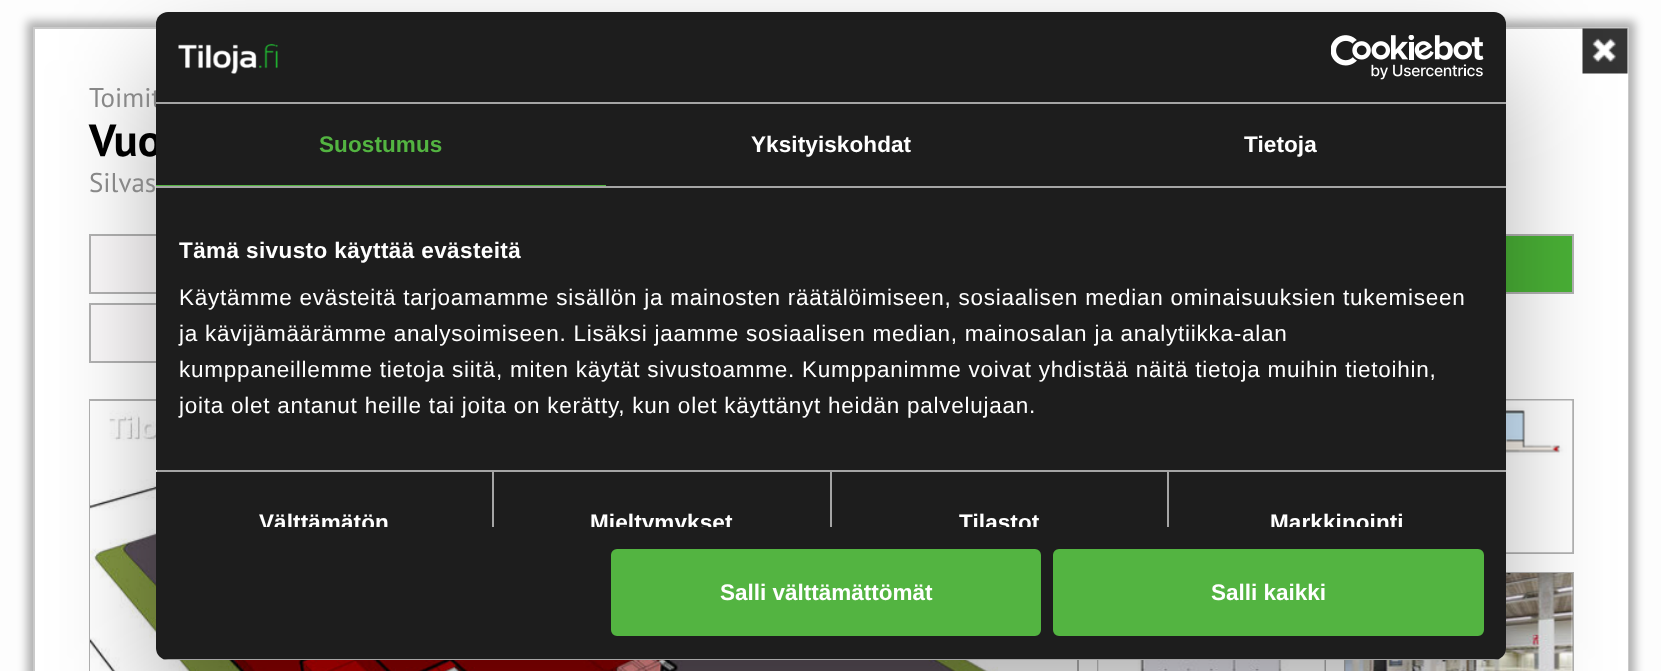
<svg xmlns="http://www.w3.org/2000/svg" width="1661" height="671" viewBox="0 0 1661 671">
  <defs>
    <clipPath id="clip1"><path d="M156 188h1350v339H156z"/></clipPath>
    <clipPath id="clip2"><rect x="156" y="12" width="1350" height="648" rx="12"/></clipPath>
  </defs>
  <rect width="100%" height="100%" fill="#fdfdfd"/>
  <path d="M27 21h1608v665H27z" fill="#0000004d" filter="blur(5px)"/>
  <path d="M34 28h1594v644H34z" fill="none" stroke="#cacaca" stroke-width="2"/>
  <path d="M35 29h1593v642H35z" fill="#fff"/>
  <image x="1582" y="28" width="46" height="46" href="img/1.png"/>
  <path d="M91 236h65v56H91z" fill="#fbf9fa"/>
  <path d="M90 235h286v58H90z" fill="none" stroke="#b2b2b2" stroke-width="2"/>
  <path d="M1506 236h66v56H1506z" fill="#4ab136"/>
  <path d="M1287 235h286v58H1287z" fill="none" stroke="#b2b2b2" stroke-width="2"/>
  <path d="M91 305h65v56H91z" fill="#fbf9fa"/>
  <path d="M90 304h286v58H90z" fill="none" stroke="#b2b2b2" stroke-width="2"/>
  <path d="M90 400h988v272H90z" fill="none" stroke="#b2b2b2" stroke-width="2"/>
  <image x="90" y="401" width="908" height="270" href="img/2.png"/>
  <path d="M1345 400h228v153H1345z" fill="none" stroke="#b2b2b2" stroke-width="2"/>
  <image x="1506" y="400" width="67" height="153" href="img/3.png"/>
  <path d="M1098 573h227v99H1098z" fill="none" stroke="#b2b2b2" stroke-width="2"/>
  <image x="1097" y="660" width="228" height="11" href="img/4.png"/>
  <path d="M1345 573h228v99H1345z" fill="none" stroke="#b2b2b2" stroke-width="2"/>
  <image x="1345" y="573" width="228" height="98" href="img/5.png"/>
  <rect x="156" y="60" width="1350" height="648" rx="12" fill="#0000004d" filter="blur(51px)"/>
  <text x="89" y="107" font-family="PT Sans" font-size="27" fill="#888">Toimit</text>
  <text x="89" y="156" font-family="PT Sans" font-size="45" font-weight="bold" fill="#000">Vuo</text>
  <text x="89" y="192" font-family="PT Sans" font-size="27" fill="#888">Silvas</text>
  <rect x="156" y="12" width="1350" height="648" rx="12" fill="#1d1d1d"/>
  <path d="M156 102h1350v2H156z" fill="#a5a5a5"/>
  <image x="178" y="43" width="100" height="31" href="img/6.png"/>
  <image x="1331" y="35" width="153" height="45" href="img/7.png"/>
  <path d="M156 186h1350v2H156z" fill="#a5a5a5"/>
  <path d="M156 185h450v1H156z" fill="#53b441"/>
  <text x="319" y="152" font-family="Liberation Sans" font-size="22.5" font-weight="bold" letter-spacing="0.1" fill="#53b441">Suostumus</text>
  <g font-family="Liberation Sans" font-size="22.5" font-weight="bold" letter-spacing="0.1" fill="#fff">
    <text x="751" y="152">Yksityiskohdat</text>
    <text x="1244" y="152">Tietoja</text>
  </g>
  <text x="179" y="258" font-family="Liberation Sans" font-size="22.5" font-weight="bold" letter-spacing="0.4" fill="#fff">Tämä sivusto käyttää evästeitä</text>
  <g font-family="Liberation Sans" font-size="22.5" letter-spacing="0.75" fill="#fff">
    <text x="179" y="305">Käytämme evästeitä tarjoamamme sisällön ja mainosten räätälöimiseen, sosiaalisen median ominaisuuksien tukemiseen</text>
    <text x="179" y="341">ja kävijämäärämme analysoimiseen. Lisäksi jaamme sosiaalisen median, mainosalan ja analytiikka-alan</text>
    <text x="179" y="377">kumppaneillemme tietoja siitä, miten käytät sivustoamme. Kumppanimme voivat yhdistää näitä tietoja muihin tietoihin,</text>
    <text x="179" y="413">joita olet antanut heille tai joita on kerätty, kun olet käyttänyt heidän palvelujaan.</text>
  </g>
  <path d="M492 471h2v56H492z" fill="#a5a5a5"/>
  <g clip-path="url(#clip1)">
    <text x="259" y="530" font-family="Liberation Sans" font-size="22.5" font-weight="bold" letter-spacing="0.1" fill="#fff">Välttämätön</text>
  </g>
  <path d="M830 471h2v56H830z" fill="#a5a5a5"/>
  <g clip-path="url(#clip1)">
    <text x="590" y="530" font-family="Liberation Sans" font-size="22.5" font-weight="bold" letter-spacing="0.1" fill="#fff">Mieltymykset</text>
  </g>
  <path d="M1167 471h2v56H1167z" fill="#a5a5a5"/>
  <path d="M156 470h1350v2H156z" fill="#a5a5a5"/>
  <path d="M156 470h1v2H156z" fill="#e5e5e5"/>
  <g clip-path="url(#clip1)">
    <g font-family="Liberation Sans" font-size="22.5" font-weight="bold" letter-spacing="0.1" fill="#fff">
      <text x="959" y="530">Tilastot</text>
      <text x="1270" y="530">Markkinointi</text>
    </g>
  </g>
  <g clip-path="url(#clip2)">
    <path d="M156 659h1350v1H156z" fill="#a5a5a5"/>
  </g>
  <rect x="612.5" y="550.5" width="427" height="84" rx="4.5" fill="#53b441" stroke="#53b441" stroke-width="3"/>
  <text x="720" y="600" font-family="Liberation Sans" font-size="22.5" font-weight="bold" fill="#fff">Salli välttämättömät</text>
  <rect x="1054.5" y="550.5" width="428" height="84" rx="4.5" fill="#53b441" stroke="#53b441" stroke-width="3"/>
  <text x="1211" y="600" font-family="Liberation Sans" font-size="22.5" font-weight="bold" fill="#fff">Salli kaikki</text>
</svg>
